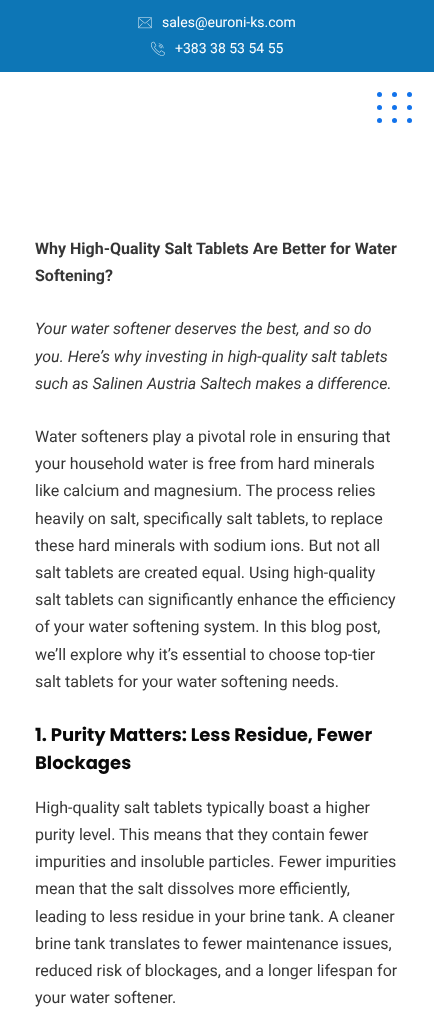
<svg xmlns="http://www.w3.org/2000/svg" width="434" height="1009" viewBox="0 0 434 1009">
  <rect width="100%" height="100%" fill="#fff"/>
  <path d="M0 0h434v72H0z" fill="#0d76b6"/>
  <image x="138" y="17" width="14" height="12" href="img/1.png"/>
  <image x="151" y="41" width="14" height="15" href="img/2.png"/>
  <circle cx="379.5" cy="94.5" r="2.5" fill="#1273eb"/>
  <circle cx="394.5" cy="94.5" r="2.5" fill="#1273eb"/>
  <circle cx="409.5" cy="94.5" r="2.5" fill="#1273eb"/>
  <circle cx="379.5" cy="107.5" r="2.5" fill="#1273eb"/>
  <circle cx="394.5" cy="107.5" r="2.5" fill="#1273eb"/>
  <circle cx="409.5" cy="107.5" r="2.5" fill="#1273eb"/>
  <circle cx="379.5" cy="120.5" r="2.5" fill="#1273eb"/>
  <circle cx="394.5" cy="120.5" r="2.5" fill="#1273eb"/>
  <circle cx="409.5" cy="120.5" r="2.5" fill="#1273eb"/>
  <g font-family="Roboto" font-size="14" fill="#fff">
    <text x="162" y="27">sales@euroni-ks.com</text>
    <text x="175" y="53">+383 38 53 54 55</text>
  </g>
  <g font-family="Roboto" font-size="16" font-weight="bold" fill="#363636">
    <text x="35" y="254">Why High-Quality Salt Tablets Are Better for Water</text>
    <text x="35" y="281">Softening?</text>
  </g>
  <g font-family="Roboto" font-size="16" font-style="italic" fill="#363636">
    <text x="35" y="334">Your water softener deserves the best, and so do</text>
    <text x="35" y="362">you. Here’s why investing in high-quality salt tablets</text>
    <text x="35" y="389">such as Salinen Austria Saltech makes a difference.</text>
  </g>
  <g font-family="Roboto" font-size="16" fill="#363636">
    <text x="35" y="442">Water softeners play a pivotal role in ensuring that</text>
    <text x="35" y="469">your household water is free from hard minerals</text>
    <text x="35" y="496">like calcium and magnesium. The process relies</text>
    <text x="35" y="524">heavily on salt, specifically salt tablets, to replace</text>
    <text x="35" y="551">these hard minerals with sodium ions. But not all</text>
    <text x="35" y="578">salt tablets are created equal. Using high-quality</text>
    <text x="35" y="605">salt tablets can significantly enhance the efficiency</text>
    <text x="35" y="632">of your water softening system. In this blog post,</text>
    <text x="35" y="660">we’ll explore why it’s essential to choose top-tier</text>
    <text x="35" y="687">salt tablets for your water softening needs.</text>
  </g>
  <g font-family="Poppins" font-size="18" font-weight="bold" fill="#0a0a0a">
    <text x="35" y="741">1. Purity Matters: Less Residue, Fewer</text>
    <text x="35" y="769">Blockages</text>
  </g>
  <g font-family="Roboto" font-size="16" fill="#363636">
    <text x="35" y="813">High-quality salt tablets typically boast a higher</text>
    <text x="35" y="840">purity level. This means that they contain fewer</text>
    <text x="35" y="867">impurities and insoluble particles. Fewer impurities</text>
    <text x="35" y="894">mean that the salt dissolves more efficiently,</text>
    <text x="35" y="922">leading to less residue in your brine tank. A cleaner</text>
    <text x="35" y="949">brine tank translates to fewer maintenance issues,</text>
    <text x="35" y="976">reduced risk of blockages, and a longer lifespan for</text>
    <text x="35" y="1003">your water softener.</text>
  </g>
</svg>
